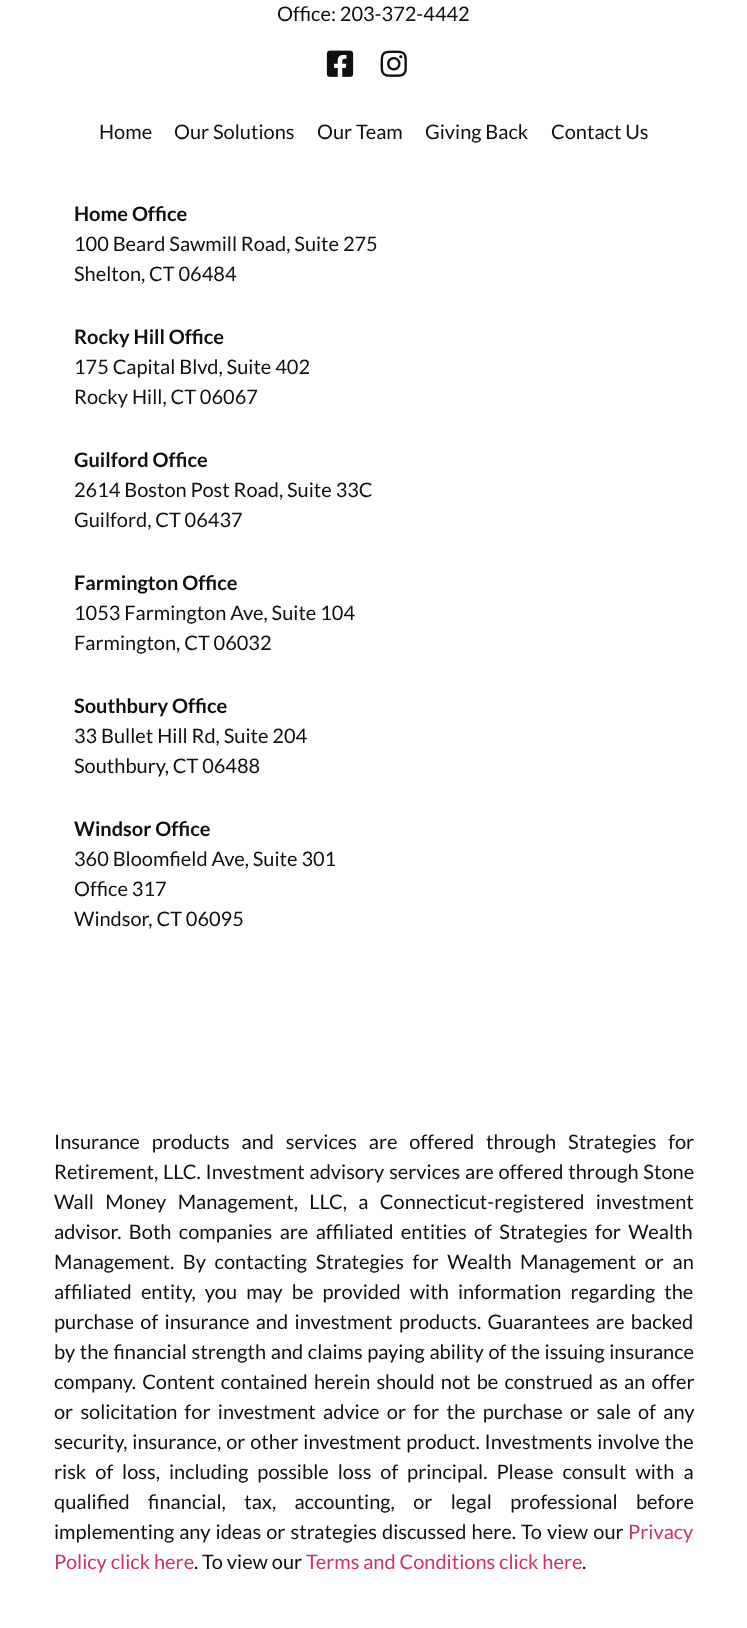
<svg xmlns="http://www.w3.org/2000/svg" width="747" height="1628" viewBox="0 0 747 1628">
  <rect width="100%" height="100%" fill="#fff"/>
  <image x="326" y="50" width="28" height="27" href="img/1.png"/>
  <image x="380" y="50" width="27" height="27" href="img/2.png"/>
  <g font-family="Lato" font-size="20" fill="#0f0f0f">
    <text x="277" y="21">Office: 203-372-4442</text>
    <text x="99" y="139">Home</text>
    <text x="174" y="139">Our Solutions</text>
    <text x="317" y="139">Our Team</text>
    <text x="425" y="139">Giving Back</text>
    <text x="551" y="139">Contact Us</text>
  </g>
  <text x="74" y="221" font-family="Lato" font-size="20" font-weight="bold" fill="#0f0f0f">Home Office</text>
  <g font-family="Lato" font-size="20" fill="#0f0f0f">
    <text x="74" y="251">100 Beard Sawmill Road, Suite 275</text>
    <text x="74" y="281">Shelton, CT 06484</text>
  </g>
  <text x="74" y="344" font-family="Lato" font-size="20" font-weight="bold" fill="#0f0f0f">Rocky Hill Office</text>
  <g font-family="Lato" font-size="20" fill="#0f0f0f">
    <text x="74" y="374">175 Capital Blvd, Suite 402</text>
    <text x="74" y="404">Rocky Hill, CT 06067</text>
  </g>
  <text x="74" y="467" font-family="Lato" font-size="20" font-weight="bold" fill="#0f0f0f">Guilford Office</text>
  <g font-family="Lato" font-size="20" fill="#0f0f0f">
    <text x="74" y="497">2614 Boston Post Road, Suite 33C</text>
    <text x="74" y="527">Guilford, CT 06437</text>
  </g>
  <text x="74" y="590" font-family="Lato" font-size="20" font-weight="bold" fill="#0f0f0f">Farmington Office</text>
  <g font-family="Lato" font-size="20" fill="#0f0f0f">
    <text x="74" y="620">1053 Farmington Ave, Suite 104</text>
    <text x="74" y="650">Farmington, CT 06032</text>
  </g>
  <text x="74" y="713" font-family="Lato" font-size="20" font-weight="bold" fill="#0f0f0f">Southbury Office</text>
  <g font-family="Lato" font-size="20" fill="#0f0f0f">
    <text x="74" y="743">33 Bullet Hill Rd, Suite 204</text>
    <text x="74" y="773">Southbury, CT 06488</text>
  </g>
  <text x="74" y="836" font-family="Lato" font-size="20" font-weight="bold" fill="#0f0f0f">Windsor Office</text>
  <g font-family="Lato" font-size="20" fill="#0f0f0f">
    <text x="74" y="866">360 Bloomfield Ave, Suite 301</text>
    <text x="74" y="896">Office 317</text>
    <text x="74" y="926">Windsor, CT 06095</text>
    <text x="54" y="1149" word-spacing="8">Insurance products and services are offered through Strategies for</text>
    <text x="54" y="1179" word-spacing="1">Retirement, LLC. Investment advisory services are offered through Stone</text>
    <text x="54" y="1209" word-spacing="7.5">Wall Money Management, LLC, a Connecticut-registered investment</text>
    <text x="54" y="1239" word-spacing="3.5">advisor. Both companies are affiliated entities of Strategies for Wealth</text>
    <text x="54" y="1269" word-spacing="4.75">Management. By contacting Strategies for Wealth Management or an</text>
    <text x="54" y="1299" word-spacing="5.25">affiliated entity, you may be provided with information regarding the</text>
    <text x="54" y="1329" word-spacing="2.5">purchase of insurance and investment products. Guarantees are backed</text>
    <text x="54" y="1359" word-spacing="0.75">by the financial strength and claims paying ability of the issuing insurance</text>
    <text x="54" y="1389" word-spacing="2.25">company. Content contained herein should not be construed as an offer</text>
    <text x="54" y="1419" word-spacing="3.4">or solicitation for investment advice or for the purchase or sale of any</text>
    <text x="54" y="1449" word-spacing="1">security, insurance, or other investment product. Investments involve the</text>
    <text x="54" y="1479" word-spacing="5.1">risk of loss, including possible loss of principal. Please consult with a</text>
    <text x="54" y="1509" word-spacing="14.5">qualified financial, tax, accounting, or legal professional before</text>
    <text x="54" y="1539" word-spacing="1.25">implementing any ideas or strategies discussed here. To view our</text>
  </g>
  <g font-family="Lato" font-size="20" fill="#c36">
    <text x="628" y="1539">Privacy</text>
    <text x="54" y="1569">Policy click here</text>
  </g>
  <text x="194" y="1569" font-family="Lato" font-size="20" fill="#0f0f0f">. To view our</text>
  <text x="306" y="1569" font-family="Lato" font-size="20" fill="#c36">Terms and Conditions click here</text>
  <text x="582" y="1569" font-family="Lato" font-size="20" fill="#0f0f0f">.</text>
</svg>
